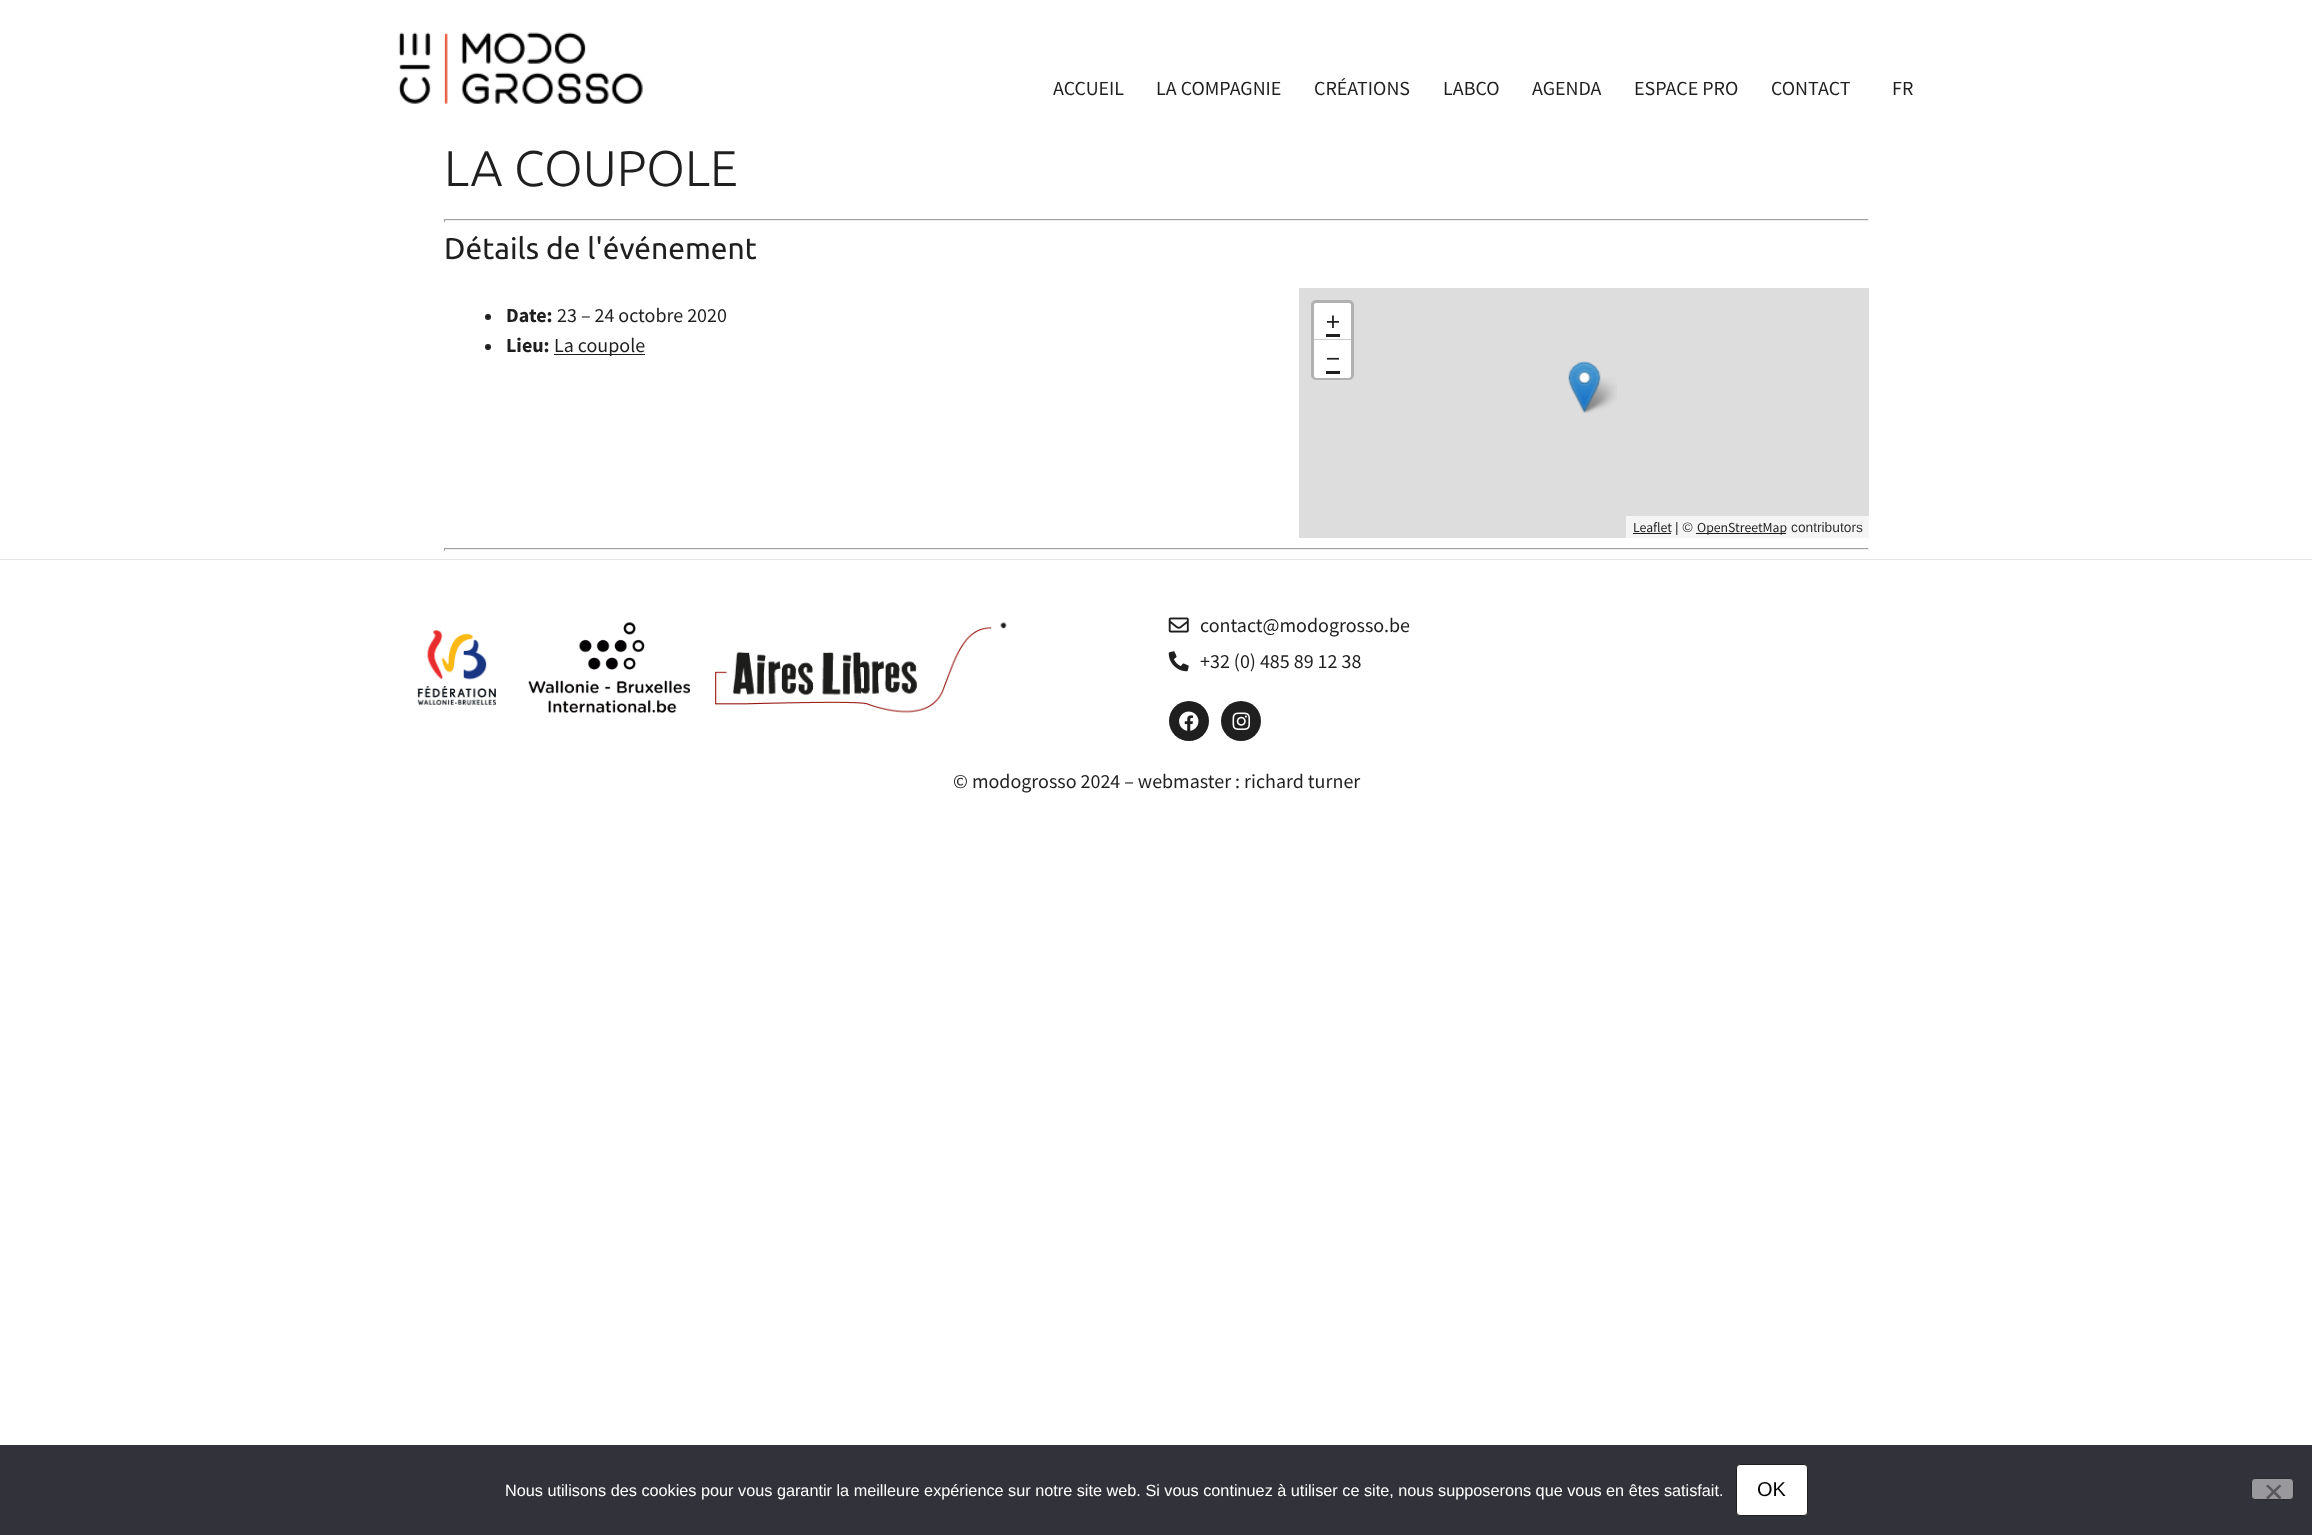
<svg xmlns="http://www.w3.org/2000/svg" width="2312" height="1535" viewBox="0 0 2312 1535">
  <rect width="100%" height="100%" fill="#fff"/>
  <image x="398" y="32" width="245" height="72" href="img/1.png"/>
  <path d="M444 219h1425v1H444z" fill="#9f9f9f"/>
  <path d="M1868 219h1v3H1868z" fill="#eee"/>
  <path d="M444 220h1425v1H444z" fill="#eee"/>
  <path d="M444 219h1v3H444z" fill="#9f9f9f"/>
  <circle cx="488" cy="317" r="3" fill="#1f1f1f"/>
  <circle cx="488" cy="347" r="3" fill="#1f1f1f"/>
  <path d="M554 354h91v1H554z" fill="#1f1f1f"/>
  <path d="M1299 288h570v250H1299z" fill="#ddd"/>
  <rect x="1312.5" y="301.5" width="40" height="77" rx="3.5" fill="none" stroke="#b1b1b1" stroke-width="3"/>
  <path d="M1316.5 303H1348.5C1350 303 1351 304 1351 305.5V340H1314V305.5C1314 304 1315 303 1316.5 303Z" fill="#fff"/>
  <path d="M1314 339h37v1H1314z" fill="#ccc"/>
  <path d="M1326 334h14v3H1326z" fill="#1f1f1f"/>
  <path d="M1314 340H1351V375.5C1351 377 1350 378 1348.5 378H1316.5C1315 378 1314 377 1314 375.5Z" fill="#fff"/>
  <path d="M1326 371h14v3H1326z" fill="#1f1f1f"/>
  <path d="M1626 516h243v22H1626z" fill="#f5f5f5"/>
  <path d="M1633 533h38v1H1633z" fill="#1f1f1f"/>
  <path d="M1696 533h90v1H1696z" fill="#1f1f1f"/>
  <image x="1580" y="377" width="37" height="36" href="img/3.png"/>
  <image x="1568" y="361" width="33" height="52" href="img/2.png"/>
  <path d="M444 548h1425v1H444z" fill="#9f9f9f"/>
  <path d="M1868 548h1v3H1868z" fill="#eee"/>
  <path d="M444 549h1425v1H444z" fill="#eee"/>
  <path d="M444 548h1v3H444z" fill="#9f9f9f"/>
  <path d="M0 559V560H2312V828H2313V559Z" fill="#e6e6e6"/>
  <image x="417" y="630" width="79" height="76" href="img/4.png"/>
  <image x="528" y="622" width="162" height="91" href="img/5.png"/>
  <image x="715" y="622" width="292" height="91" href="img/6.png"/>
  <image x="1168" y="617" width="21" height="16" href="img/7.png"/>
  <image x="1168" y="651" width="21" height="21" href="img/8.png"/>
  <circle cx="1189" cy="721" r="20" fill="#1f1f1f"/>
  <image x="1179" y="711" width="20" height="20" href="img/9.png"/>
  <circle cx="1241" cy="721" r="20" fill="#1f1f1f"/>
  <image x="1232" y="712" width="19" height="18" href="img/10.png"/>
  <path d="M0 1445h2312v90H0z" fill="#32323a"/>
  <rect x="1736.5" y="1464.5" width="71" height="51" rx="3.5" fill="#fff" stroke="#1f1f1f"/>
  <rect x="2251.5" y="1478.5" width="42" height="21" rx="3.5" fill="#99999d" stroke="#29292d"/>
  <path d="M2279.5 1484.5L2281.5 1486L2268 1499.5L2266 1497.5Z" fill="#59595d"/>
  <path d="M2266 1486L2268 1484.5L2281.5 1497.5L2279.5 1499.5Z" fill="#59595d"/>
  <g font-family="Source Sans Pro" font-size="20" fill="#1f1f1f">
    <text x="1053" y="95">ACCUEIL</text>
    <text x="1156" y="95">LA COMPAGNIE</text>
    <text x="1314" y="95">CRÉATIONS</text>
    <text x="1443" y="95">LABCO</text>
    <text x="1532" y="95">AGENDA</text>
    <text x="1634" y="95">ESPACE PRO</text>
    <text x="1771" y="95">CONTACT</text>
    <text x="1892" y="95">FR</text>
  </g>
  <text x="444" y="186" font-family="Ubuntu" font-size="50" font-weight="300" fill="#1f1f1f">LA COUPOLE</text>
  <text x="444" y="259" font-family="Ubuntu" font-size="30" fill="#1f1f1f">Détails de l'événement</text>
  <text x="506" y="322" font-family="Source Sans Pro" font-size="20" font-weight="bold" fill="#1f1f1f">Date:</text>
  <text x="557" y="322" font-family="Source Sans Pro" font-size="20" fill="#1f1f1f">23 – 24 octobre 2020</text>
  <text x="506" y="352" font-family="Source Sans Pro" font-size="20" font-weight="bold" fill="#1f1f1f">Lieu:</text>
  <text x="554" y="352" font-family="Source Sans Pro" font-size="20" fill="#1f1f1f">La coupole</text>
  <g font-family="Source Sans Pro" font-size="28" fill="#1f1f1f">
    <text x="1326" y="331">+</text>
    <text x="1326" y="368">−</text>
  </g>
  <text x="1633" y="532" font-family="Source Sans Pro" font-size="13.75" fill="#1f1f1f">Leaflet</text>
  <text x="1675" y="532" font-family="Liberation Sans" font-size="13.75" fill="#333">| ©</text>
  <text x="1697" y="532" font-family="Source Sans Pro" font-size="13.75" fill="#1f1f1f">OpenStreetMap</text>
  <text x="1791" y="532" font-family="Liberation Sans" font-size="13.75" fill="#333">contributors</text>
  <g font-family="Source Sans Pro" font-size="20" fill="#1f1f1f">
    <text x="1200" y="632">contact@modogrosso.be</text>
    <text x="1200" y="668">+32 (0) 485 89 12 38</text>
    <text x="953" y="788">© modogrosso 2024 – webmaster : richard turner</text>
  </g>
  <text x="505" y="1496" font-family="Liberation Sans" font-size="16.25" fill="#fff">Nous utilisons des cookies pour vous garantir la meilleure expérience sur notre site web. Si vous continuez à utiliser ce site, nous supposerons que vous en êtes satisfait.</text>
  <text x="1757" y="1496" font-family="Liberation Sans" font-size="20" fill="#000">OK</text>
</svg>
